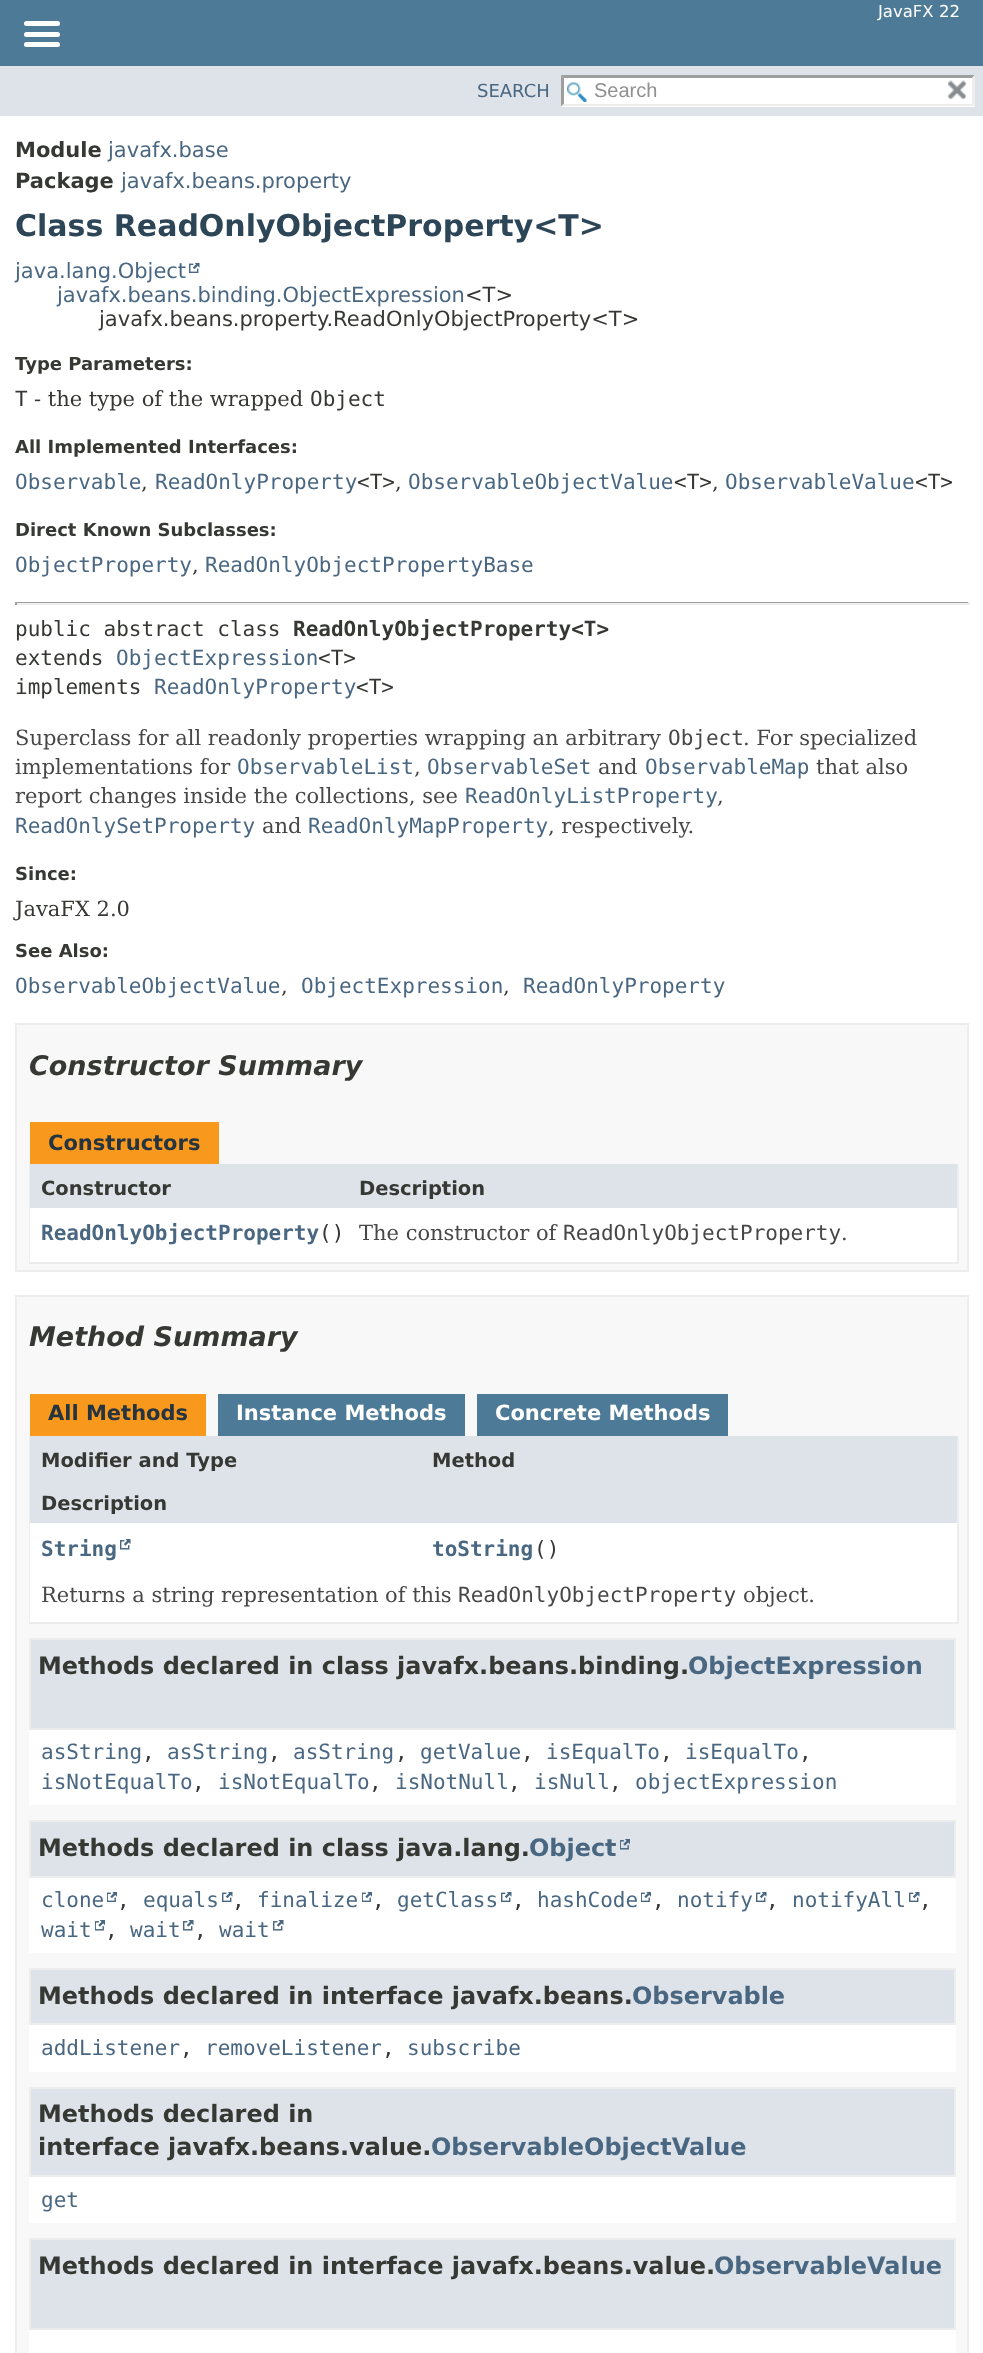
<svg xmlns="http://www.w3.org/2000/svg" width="983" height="2353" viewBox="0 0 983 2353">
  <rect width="100%" height="100%" fill="#fff"/>
  <path d="M0 0h983v66H0z" fill="#4d7a97"/>
  <rect x="24" y="21" width="36" height="5" rx="2.5" fill="#fff"/>
  <rect x="24" y="32" width="36" height="5" rx="2.5" fill="#fff"/>
  <rect x="24" y="42" width="36" height="5" rx="2.5" fill="#fff"/>
  <path d="M0 66h983v50H0z" fill="#dee3e9"/>
  <path d="M561 75h414v32H561z" fill="#fff"/>
  <image x="567" y="82" width="20" height="20" href="img/1.png"/>
  <path d="M561 75H975L972 78H564Z" fill="#9e9e9e"/>
  <path d="M975 75V106.5L972 103.5V78Z" fill="#ededed"/>
  <path d="M975 106H561L564 104H972Z" fill="#ededed"/>
  <path d="M561 106.5V75L564 78V103.5Z" fill="#9e9e9e"/>
  <image x="948" y="80" width="18" height="19" href="img/2.png"/>
  <image x="189" y="263" width="11" height="10" href="img/3.png"/>
  <path d="M15 602h954v1H15z" fill="#9f9f9f"/>
  <path d="M968 602h2v3H968z" fill="#eee"/>
  <path d="M15 603h954v2H15z" fill="#eee"/>
  <path d="M15 602h2v3H15z" fill="#9f9f9f"/>
  <path d="M16 1024h952v247H16z" fill="#f8f8f8" stroke="#ededed" stroke-width="2"/>
  <path d="M30 1122h189v42H30z" fill="#f8981d"/>
  <path d="M957 1164h2v99H957z" fill="#ededed"/>
  <path d="M29 1262h930v2H29z" fill="#ededed"/>
  <path d="M29 1164h2v99H29z" fill="#ededed"/>
  <path d="M30 1164h927v44H30z" fill="#dee3e9"/>
  <path d="M30 1208h927v54H30z" fill="#fff"/>
  <path d="M16 1296h952v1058H16z" fill="#f8f8f8" stroke="#ededed" stroke-width="2"/>
  <path d="M30 1394h176v42H30z" fill="#f8981d"/>
  <path d="M218 1394h247v42H218z" fill="#4d7a97"/>
  <path d="M477 1394h251v42H477z" fill="#4d7a97"/>
  <path d="M957 1436h2v187H957z" fill="#ededed"/>
  <path d="M29 1622h930v2H29z" fill="#ededed"/>
  <path d="M29 1436h2v187H29z" fill="#ededed"/>
  <path d="M30 1436h927v87H30z" fill="#dee3e9"/>
  <path d="M30 1523h927v99H30z" fill="#fff"/>
  <image x="120" y="1539" width="11" height="11" href="img/4.png"/>
  <path d="M29 1730h927v75H29z" fill="#fff"/>
  <path d="M30 1639h925v90H30z" fill="#dee3e9" stroke="#ededed" stroke-width="2"/>
  <path d="M29 1878h927v75H29z" fill="#fff"/>
  <path d="M30 1821h925v56H30z" fill="#dee3e9" stroke="#ededed" stroke-width="2"/>
  <image x="620" y="1839" width="10" height="11" href="img/5.png"/>
  <image x="107" y="1892" width="10" height="10" href="img/6.png"/>
  <image x="222" y="1892" width="11" height="10" href="img/3.png"/>
  <image x="362" y="1892" width="10" height="10" href="img/6.png"/>
  <image x="501" y="1892" width="11" height="10" href="img/3.png"/>
  <image x="641" y="1892" width="10" height="10" href="img/6.png"/>
  <image x="756" y="1892" width="11" height="10" href="img/3.png"/>
  <image x="909" y="1892" width="11" height="10" href="img/3.png"/>
  <image x="95" y="1920" width="10" height="11" href="img/7.png"/>
  <image x="183" y="1920" width="11" height="11" href="img/4.png"/>
  <image x="273" y="1920" width="11" height="11" href="img/4.png"/>
  <path d="M29 2025h927v47H29z" fill="#fff"/>
  <path d="M30 1969h925v55H30z" fill="#dee3e9" stroke="#ededed" stroke-width="2"/>
  <path d="M29 2177h927v46H29z" fill="#fff"/>
  <path d="M30 2088h925v88H30z" fill="#dee3e9" stroke="#ededed" stroke-width="2"/>
  <path d="M29 2330h927v23H29z" fill="#fff"/>
  <path d="M30 2239h925v90H30z" fill="#dee3e9" stroke="#ededed" stroke-width="2"/>
  <text x="878" y="17" font-family="DejaVu Sans" font-size="16.5" fill="#fff">JavaFX 22</text>
  <text x="477" y="97" font-family="DejaVu Sans" font-size="18" fill="#4a6782">SEARCH</text>
  <text x="594" y="97" font-family="Liberation Sans" font-size="20" fill="#909090">Search</text>
  <text x="15" y="157" font-family="DejaVu Sans" font-size="21" font-weight="bold" fill="#353833">Module</text>
  <text x="108" y="157" font-family="DejaVu Sans" font-size="21" fill="#4a6782">javafx.base</text>
  <text x="15" y="188" font-family="DejaVu Sans" font-size="21" font-weight="bold" fill="#353833">Package</text>
  <text x="121" y="188" font-family="DejaVu Sans" font-size="21" fill="#4a6782">javafx.beans.property</text>
  <text x="15" y="236" font-family="DejaVu Sans" font-size="30" font-weight="bold" fill="#2c4557">Class ReadOnlyObjectProperty&lt;T&gt;</text>
  <g font-family="DejaVu Sans" font-size="21" fill="#4a6782">
    <text x="15" y="278">java.lang.Object</text>
    <text x="57" y="302">javafx.beans.binding.ObjectExpression</text>
  </g>
  <g font-family="DejaVu Sans" font-size="21" fill="#353833">
    <text x="465" y="302">&lt;T&gt;</text>
    <text x="99" y="326">javafx.beans.property.ReadOnlyObjectProperty&lt;T&gt;</text>
  </g>
  <text x="15" y="370" font-family="DejaVu Sans" font-size="18" font-weight="bold" fill="#353833">Type Parameters:</text>
  <text x="15" y="406" font-family="DejaVu Sans Mono" font-size="21" fill="#353833">T</text>
  <text x="34" y="406" font-family="DejaVu Serif" font-size="21" fill="#353833">- the type of the wrapped</text>
  <text x="310" y="406" font-family="DejaVu Sans Mono" font-size="21" fill="#353833">Object</text>
  <text x="15" y="453" font-family="DejaVu Sans" font-size="18" font-weight="bold" fill="#353833">All Implemented Interfaces:</text>
  <text x="15" y="489" font-family="DejaVu Sans Mono" font-size="21" fill="#4a6782">Observable</text>
  <text x="141" y="489" font-family="DejaVu Serif" font-size="21" fill="#353833">,</text>
  <text x="155" y="489" font-family="DejaVu Sans Mono" font-size="21" fill="#4a6782">ReadOnlyProperty</text>
  <text x="357" y="489" font-family="DejaVu Sans Mono" font-size="21" fill="#353833">&lt;T&gt;</text>
  <text x="395" y="489" font-family="DejaVu Serif" font-size="21" fill="#353833">,</text>
  <text x="408" y="489" font-family="DejaVu Sans Mono" font-size="21" fill="#4a6782">ObservableObjectValue</text>
  <text x="674" y="489" font-family="DejaVu Sans Mono" font-size="21" fill="#353833">&lt;T&gt;</text>
  <text x="712" y="489" font-family="DejaVu Serif" font-size="21" fill="#353833">,</text>
  <text x="725" y="489" font-family="DejaVu Sans Mono" font-size="21" fill="#4a6782">ObservableValue</text>
  <text x="915" y="489" font-family="DejaVu Sans Mono" font-size="21" fill="#353833">&lt;T&gt;</text>
  <text x="15" y="536" font-family="DejaVu Sans" font-size="18" font-weight="bold" fill="#353833">Direct Known Subclasses:</text>
  <text x="15" y="572" font-family="DejaVu Sans Mono" font-size="21" fill="#4a6782">ObjectProperty</text>
  <text x="192" y="572" font-family="DejaVu Serif" font-size="21" fill="#353833">,</text>
  <text x="205" y="572" font-family="DejaVu Sans Mono" font-size="21" fill="#4a6782">ReadOnlyObjectPropertyBase</text>
  <text x="15" y="636" font-family="DejaVu Sans Mono" font-size="21" fill="#353833">public abstract class</text>
  <text x="293" y="636" font-family="DejaVu Sans Mono" font-size="21" font-weight="bold" fill="#353833">ReadOnlyObjectProperty&lt;T&gt;</text>
  <text x="15" y="665" font-family="DejaVu Sans Mono" font-size="21" fill="#353833">extends</text>
  <text x="116" y="665" font-family="DejaVu Sans Mono" font-size="21" fill="#4a6782">ObjectExpression</text>
  <g font-family="DejaVu Sans Mono" font-size="21" fill="#353833">
    <text x="318" y="665">&lt;T&gt;</text>
    <text x="15" y="694">implements</text>
  </g>
  <text x="154" y="694" font-family="DejaVu Sans Mono" font-size="21" fill="#4a6782">ReadOnlyProperty</text>
  <text x="356" y="694" font-family="DejaVu Sans Mono" font-size="21" fill="#353833">&lt;T&gt;</text>
  <text x="15" y="745" font-family="DejaVu Serif" font-size="21" fill="#474747">Superclass for all readonly properties wrapping an arbitrary</text>
  <text x="668" y="745" font-family="DejaVu Sans Mono" font-size="21" fill="#474747">Object</text>
  <g font-family="DejaVu Serif" font-size="21" fill="#474747">
    <text x="743" y="745">. For specialized</text>
    <text x="15" y="774">implementations for</text>
  </g>
  <text x="237" y="774" font-family="DejaVu Sans Mono" font-size="21" fill="#4a6782">ObservableList</text>
  <text x="414" y="774" font-family="DejaVu Serif" font-size="21" fill="#474747">,</text>
  <text x="427" y="774" font-family="DejaVu Sans Mono" font-size="21" fill="#4a6782">ObservableSet</text>
  <text x="598" y="774" font-family="DejaVu Serif" font-size="21" fill="#474747">and</text>
  <text x="645" y="774" font-family="DejaVu Sans Mono" font-size="21" fill="#4a6782">ObservableMap</text>
  <g font-family="DejaVu Serif" font-size="21" fill="#474747">
    <text x="816" y="774">that also</text>
    <text x="15" y="803">report changes inside the collections, see</text>
  </g>
  <text x="465" y="803" font-family="DejaVu Sans Mono" font-size="21" fill="#4a6782">ReadOnlyListProperty</text>
  <text x="717" y="803" font-family="DejaVu Serif" font-size="21" fill="#474747">,</text>
  <text x="15" y="833" font-family="DejaVu Sans Mono" font-size="21" fill="#4a6782">ReadOnlySetProperty</text>
  <text x="262" y="833" font-family="DejaVu Serif" font-size="21" fill="#474747">and</text>
  <text x="308" y="833" font-family="DejaVu Sans Mono" font-size="21" fill="#4a6782">ReadOnlyMapProperty</text>
  <text x="548" y="833" font-family="DejaVu Serif" font-size="21" fill="#474747">, respectively.</text>
  <text x="15" y="880" font-family="DejaVu Sans" font-size="18" font-weight="bold" fill="#353833">Since:</text>
  <text x="15" y="916" font-family="DejaVu Serif" font-size="21" fill="#353833">JavaFX 2.0</text>
  <text x="15" y="957" font-family="DejaVu Sans" font-size="18" font-weight="bold" fill="#353833">See Also:</text>
  <text x="15" y="993" font-family="DejaVu Sans Mono" font-size="21" fill="#4a6782">ObservableObjectValue</text>
  <text x="281" y="993" font-family="DejaVu Serif" font-size="21" fill="#353833">,</text>
  <text x="301" y="993" font-family="DejaVu Sans Mono" font-size="21" fill="#4a6782">ObjectExpression</text>
  <text x="503" y="993" font-family="DejaVu Serif" font-size="21" fill="#353833">,</text>
  <text x="523" y="993" font-family="DejaVu Sans Mono" font-size="21" fill="#4a6782">ReadOnlyProperty</text>
  <text x="29" y="1075" font-family="DejaVu Sans" font-size="27" font-weight="bold" font-style="italic" fill="#353833">Constructor Summary</text>
  <text x="48" y="1150" font-family="DejaVu Sans" font-size="21" font-weight="bold" fill="#253441">Constructors</text>
  <g font-family="DejaVu Sans" font-size="19.5" font-weight="bold" fill="#353833">
    <text x="41" y="1195">Constructor</text>
    <text x="359" y="1195">Description</text>
  </g>
  <text x="41" y="1240" font-family="DejaVu Sans Mono" font-size="21" font-weight="bold" fill="#4a6782">ReadOnlyObjectProperty</text>
  <text x="319" y="1240" font-family="DejaVu Sans Mono" font-size="21" fill="#353833">()</text>
  <text x="359" y="1240" font-family="DejaVu Serif" font-size="21" fill="#474747">The constructor of</text>
  <text x="563" y="1240" font-family="DejaVu Sans Mono" font-size="21" fill="#474747">ReadOnlyObjectProperty</text>
  <text x="841" y="1240" font-family="DejaVu Serif" font-size="21" fill="#474747">.</text>
  <text x="29" y="1346" font-family="DejaVu Sans" font-size="27" font-weight="bold" font-style="italic" fill="#353833">Method Summary</text>
  <text x="48" y="1420" font-family="DejaVu Sans" font-size="21" font-weight="bold" fill="#253441">All Methods</text>
  <g font-family="DejaVu Sans" font-size="21" font-weight="bold" fill="#fff">
    <text x="236" y="1420">Instance Methods</text>
    <text x="495" y="1420">Concrete Methods</text>
  </g>
  <g font-family="DejaVu Sans" font-size="19.5" font-weight="bold" fill="#353833">
    <text x="41" y="1467">Modifier and Type</text>
    <text x="432" y="1467">Method</text>
    <text x="41" y="1510">Description</text>
  </g>
  <g font-family="DejaVu Sans Mono" font-size="21" font-weight="bold" fill="#4a6782">
    <text x="41" y="1556">String</text>
    <text x="432" y="1556">toString</text>
  </g>
  <text x="534" y="1556" font-family="DejaVu Sans Mono" font-size="21" fill="#353833">()</text>
  <text x="41" y="1602" font-family="DejaVu Serif" font-size="21" fill="#474747">Returns a string representation of this</text>
  <text x="458" y="1602" font-family="DejaVu Sans Mono" font-size="21" fill="#474747">ReadOnlyObjectProperty</text>
  <text x="743" y="1602" font-family="DejaVu Serif" font-size="21" fill="#474747">object.</text>
  <text x="38" y="1674" font-family="DejaVu Sans" font-size="23.95" font-weight="bold" fill="#353833">Methods declared in class javafx.beans.binding.</text>
  <text x="688" y="1674" font-family="DejaVu Sans" font-size="23.95" font-weight="bold" fill="#4a6782">ObjectExpression</text>
  <text x="41" y="1759" font-family="DejaVu Sans Mono" font-size="21" fill="#4a6782">asString</text>
  <text x="142" y="1759" font-family="DejaVu Sans Mono" font-size="21" fill="#353833">,</text>
  <text x="167" y="1759" font-family="DejaVu Sans Mono" font-size="21" fill="#4a6782">asString</text>
  <text x="268" y="1759" font-family="DejaVu Sans Mono" font-size="21" fill="#353833">,</text>
  <text x="293" y="1759" font-family="DejaVu Sans Mono" font-size="21" fill="#4a6782">asString</text>
  <text x="395" y="1759" font-family="DejaVu Sans Mono" font-size="21" fill="#353833">,</text>
  <text x="420" y="1759" font-family="DejaVu Sans Mono" font-size="21" fill="#4a6782">getValue</text>
  <text x="521" y="1759" font-family="DejaVu Sans Mono" font-size="21" fill="#353833">,</text>
  <text x="546" y="1759" font-family="DejaVu Sans Mono" font-size="21" fill="#4a6782">isEqualTo</text>
  <text x="660" y="1759" font-family="DejaVu Sans Mono" font-size="21" fill="#353833">,</text>
  <text x="685" y="1759" font-family="DejaVu Sans Mono" font-size="21" fill="#4a6782">isEqualTo</text>
  <text x="799" y="1759" font-family="DejaVu Sans Mono" font-size="21" fill="#353833">,</text>
  <text x="41" y="1789" font-family="DejaVu Sans Mono" font-size="21" fill="#4a6782">isNotEqualTo</text>
  <text x="192" y="1789" font-family="DejaVu Sans Mono" font-size="21" fill="#353833">,</text>
  <text x="218" y="1789" font-family="DejaVu Sans Mono" font-size="21" fill="#4a6782">isNotEqualTo</text>
  <text x="369" y="1789" font-family="DejaVu Sans Mono" font-size="21" fill="#353833">,</text>
  <text x="395" y="1789" font-family="DejaVu Sans Mono" font-size="21" fill="#4a6782">isNotNull</text>
  <text x="508" y="1789" font-family="DejaVu Sans Mono" font-size="21" fill="#353833">,</text>
  <text x="534" y="1789" font-family="DejaVu Sans Mono" font-size="21" fill="#4a6782">isNull</text>
  <text x="609" y="1789" font-family="DejaVu Sans Mono" font-size="21" fill="#353833">,</text>
  <text x="635" y="1789" font-family="DejaVu Sans Mono" font-size="21" fill="#4a6782">objectExpression</text>
  <text x="38" y="1856" font-family="DejaVu Sans" font-size="23.95" font-weight="bold" fill="#353833">Methods declared in class java.lang.</text>
  <text x="529" y="1856" font-family="DejaVu Sans" font-size="23.95" font-weight="bold" fill="#4a6782">Object</text>
  <text x="41" y="1907" font-family="DejaVu Sans Mono" font-size="21" fill="#4a6782">clone</text>
  <text x="117" y="1907" font-family="DejaVu Sans Mono" font-size="21" fill="#353833">,</text>
  <text x="143" y="1907" font-family="DejaVu Sans Mono" font-size="21" fill="#4a6782">equals</text>
  <text x="232" y="1907" font-family="DejaVu Sans Mono" font-size="21" fill="#353833">,</text>
  <text x="257" y="1907" font-family="DejaVu Sans Mono" font-size="21" fill="#4a6782">finalize</text>
  <text x="372" y="1907" font-family="DejaVu Sans Mono" font-size="21" fill="#353833">,</text>
  <text x="397" y="1907" font-family="DejaVu Sans Mono" font-size="21" fill="#4a6782">getClass</text>
  <text x="512" y="1907" font-family="DejaVu Sans Mono" font-size="21" fill="#353833">,</text>
  <text x="537" y="1907" font-family="DejaVu Sans Mono" font-size="21" fill="#4a6782">hashCode</text>
  <text x="652" y="1907" font-family="DejaVu Sans Mono" font-size="21" fill="#353833">,</text>
  <text x="677" y="1907" font-family="DejaVu Sans Mono" font-size="21" fill="#4a6782">notify</text>
  <text x="766" y="1907" font-family="DejaVu Sans Mono" font-size="21" fill="#353833">,</text>
  <text x="792" y="1907" font-family="DejaVu Sans Mono" font-size="21" fill="#4a6782">notifyAll</text>
  <text x="919" y="1907" font-family="DejaVu Sans Mono" font-size="21" fill="#353833">,</text>
  <text x="41" y="1937" font-family="DejaVu Sans Mono" font-size="21" fill="#4a6782">wait</text>
  <text x="105" y="1937" font-family="DejaVu Sans Mono" font-size="21" fill="#353833">,</text>
  <text x="130" y="1937" font-family="DejaVu Sans Mono" font-size="21" fill="#4a6782">wait</text>
  <text x="194" y="1937" font-family="DejaVu Sans Mono" font-size="21" fill="#353833">,</text>
  <text x="219" y="1937" font-family="DejaVu Sans Mono" font-size="21" fill="#4a6782">wait</text>
  <text x="38" y="2004" font-family="DejaVu Sans" font-size="23.95" font-weight="bold" fill="#353833">Methods declared in interface javafx.beans.</text>
  <text x="632" y="2004" font-family="DejaVu Sans" font-size="23.95" font-weight="bold" fill="#4a6782">Observable</text>
  <text x="41" y="2055" font-family="DejaVu Sans Mono" font-size="21" fill="#4a6782">addListener</text>
  <text x="180" y="2055" font-family="DejaVu Sans Mono" font-size="21" fill="#353833">,</text>
  <text x="205" y="2055" font-family="DejaVu Sans Mono" font-size="21" fill="#4a6782">removeListener</text>
  <text x="382" y="2055" font-family="DejaVu Sans Mono" font-size="21" fill="#353833">,</text>
  <text x="407" y="2055" font-family="DejaVu Sans Mono" font-size="21" fill="#4a6782">subscribe</text>
  <g font-family="DejaVu Sans" font-size="23.95" font-weight="bold" fill="#353833">
    <text x="38" y="2122">Methods declared in</text>
    <text x="38" y="2155">interface javafx.beans.value.</text>
  </g>
  <text x="431" y="2155" font-family="DejaVu Sans" font-size="23.95" font-weight="bold" fill="#4a6782">ObservableObjectValue</text>
  <text x="41" y="2207" font-family="DejaVu Sans Mono" font-size="21" fill="#4a6782">get</text>
  <text x="38" y="2274" font-family="DejaVu Sans" font-size="23.95" font-weight="bold" fill="#353833">Methods declared in interface javafx.beans.value.</text>
  <text x="714" y="2274" font-family="DejaVu Sans" font-size="23.95" font-weight="bold" fill="#4a6782">ObservableValue</text>
</svg>
